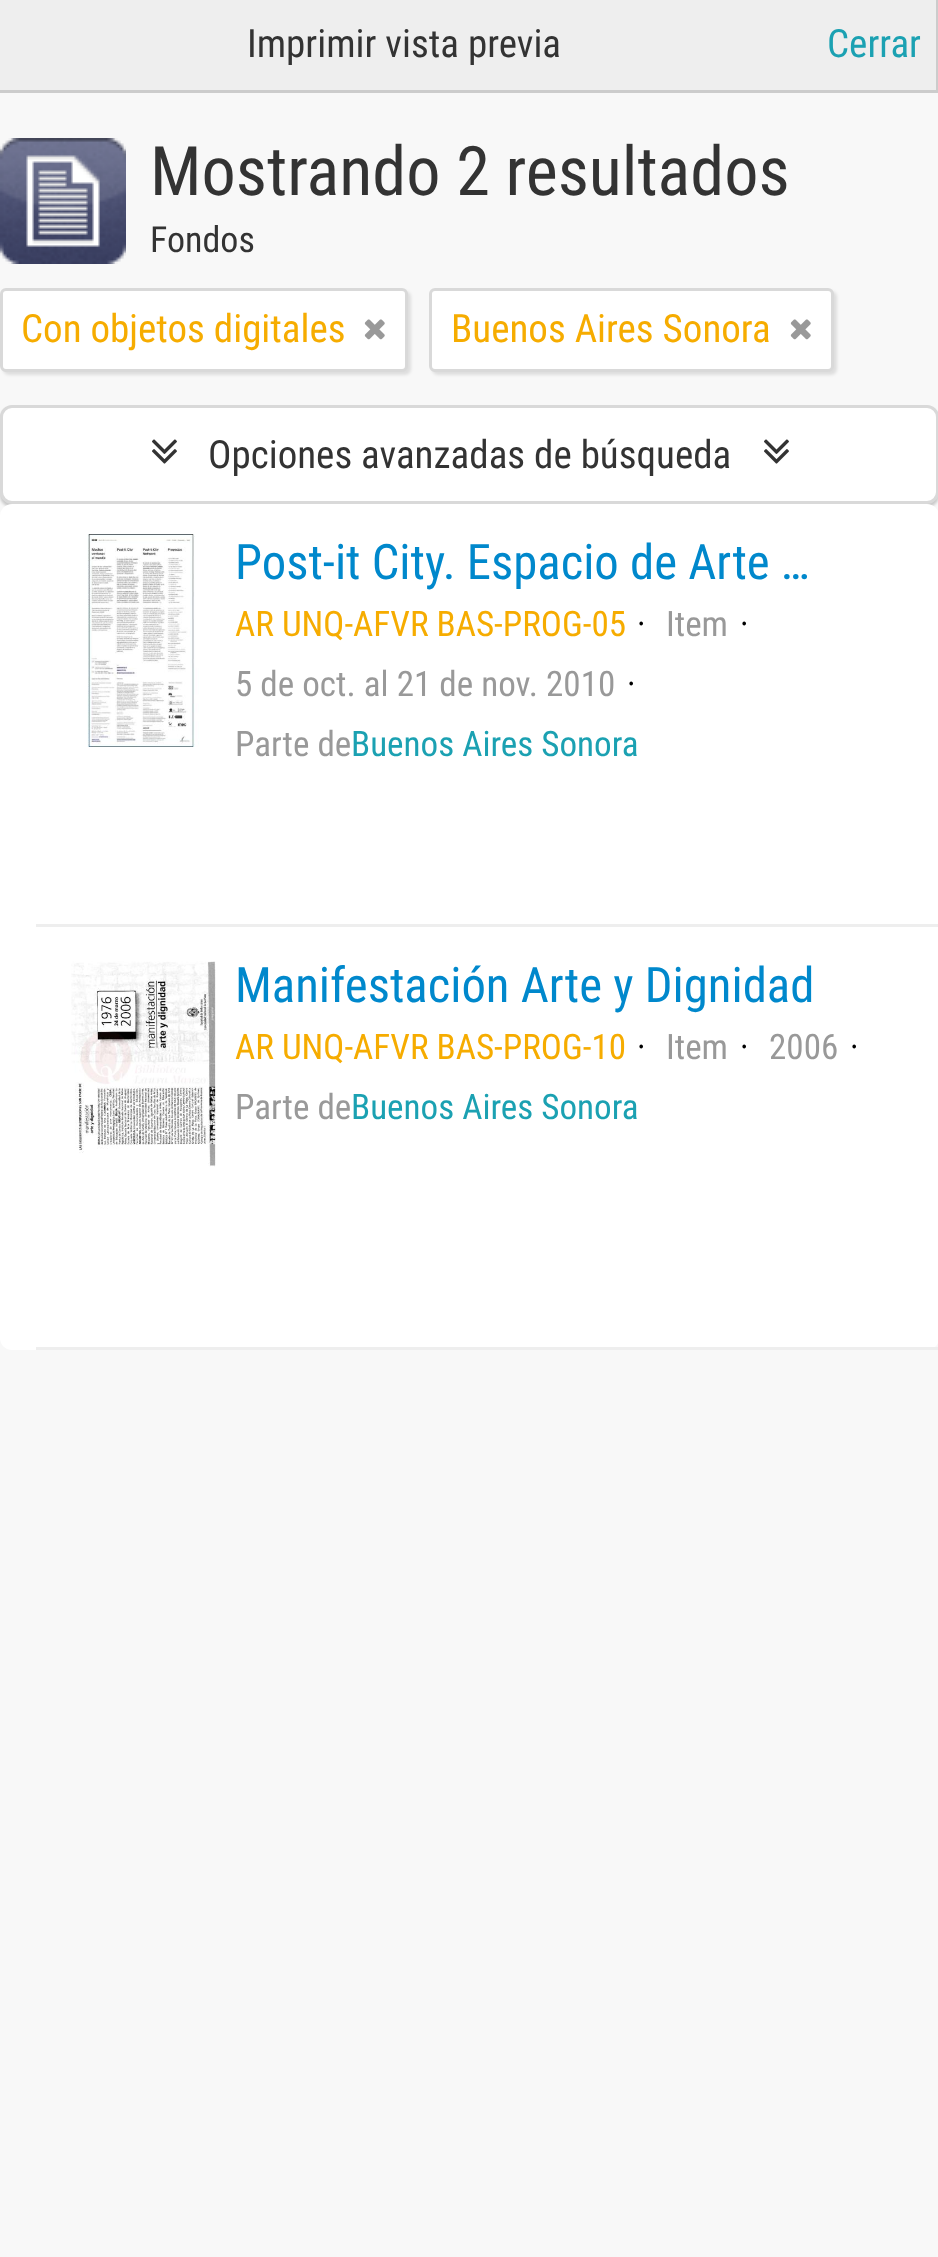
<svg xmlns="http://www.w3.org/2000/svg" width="938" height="2257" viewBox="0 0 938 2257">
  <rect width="100%" height="100%" fill="#f8f8f8"/>
  <path d="M0 0h936v90H0z" fill="#eee"/>
  <path d="M936 0h2v93H936z" fill="#ccc"/>
  <path d="M0 90h938v3H0z" fill="#ccc"/>
  <image x="0" y="138" width="126" height="126" href="img/1.png"/>
  <rect x="3" y="291" width="408" height="84" rx="6" fill="#0000001a" filter="blur(1.5px)"/>
  <rect x="1.5" y="289.5" width="405" height="81" rx="4.5" fill="#fff" stroke="#d9d9d9" stroke-width="3"/>
  <image x="364" y="319" width="21" height="21" href="img/2.png"/>
  <rect x="432" y="291" width="405" height="84" rx="6" fill="#0000001a" filter="blur(1.5px)"/>
  <rect x="430.5" y="289.5" width="402" height="81" rx="4.5" fill="#fff" stroke="#d9d9d9" stroke-width="3"/>
  <image x="790" y="319" width="21" height="21" href="img/2.png"/>
  <rect y="408" width="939" height="99" rx="12" fill="#00000033" filter="blur(1.5px)"/>
  <rect x="1.5" y="406.5" width="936" height="96" rx="10.5" fill="#fff" stroke="#d9d9d9" stroke-width="3"/>
  <image x="152" y="439" width="25" height="25" href="img/3.png"/>
  <image x="764" y="439" width="25" height="25" href="img/3.png"/>
  <rect y="504" width="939" height="846" rx="12" fill="#fff"/>
  <path d="M36 924h902v3H36z" fill="#eee"/>
  <image x="87" y="534" width="112" height="213" href="img/4.png"/>
  <path d="M36 1347h902v3H36z" fill="#eee"/>
  <image x="71" y="961" width="145" height="206" href="img/5.png"/>
  <text x="247" y="57" font-family="Roboto Condensed" font-size="39" fill="#333">Imprimir vista previa</text>
  <text x="827" y="57" font-family="Roboto Condensed" font-size="39" fill="#1ba1b2">Cerrar</text>
  <text x="150" y="195" font-family="Roboto Condensed" font-size="68.25" fill="#333">Mostrando 2 resultados</text>
  <text x="150" y="252" font-family="Roboto Condensed" font-size="36" fill="#333">Fondos</text>
  <g font-family="Roboto Condensed" font-size="39" fill="#f6ac00">
    <text x="21" y="342">Con objetos digitales</text>
    <text x="451" y="342">Buenos Aires Sonora</text>
  </g>
  <text x="208" y="468" font-family="Roboto Condensed" font-size="39" fill="#333">Opciones avanzadas de búsqueda</text>
  <text x="235" y="579" font-family="Roboto Condensed" font-size="48.75" fill="#08c">Post-it City. Espacio de Arte …</text>
  <text x="235" y="636" font-family="Roboto Condensed" font-size="35.1" fill="#f6ac00">AR UNQ-AFVR BAS-PROG-05</text>
  <text x="637" y="636" font-family="Roboto Condensed" font-size="35.1" fill="#000">·</text>
  <text x="666" y="636" font-family="Roboto Condensed" font-size="35.1" fill="#999">Item</text>
  <text x="740" y="636" font-family="Roboto Condensed" font-size="35.1" fill="#000">·</text>
  <text x="235" y="696" font-family="Roboto Condensed" font-size="35.1" fill="#999">5 de oct. al 21 de nov. 2010</text>
  <text x="627" y="696" font-family="Roboto Condensed" font-size="35.1" fill="#000">·</text>
  <text x="235" y="756" font-family="Roboto Condensed" font-size="35.1" fill="#999">Parte de</text>
  <text x="351" y="756" font-family="Roboto Condensed" font-size="35.1" fill="#1ba1b2">Buenos Aires Sonora</text>
  <text x="235" y="1002" font-family="Roboto Condensed" font-size="48.75" fill="#08c">Manifestación Arte y Dignidad</text>
  <text x="235" y="1059" font-family="Roboto Condensed" font-size="35.1" fill="#f6ac00">AR UNQ-AFVR BAS-PROG-10</text>
  <text x="637" y="1059" font-family="Roboto Condensed" font-size="35.1" fill="#000">·</text>
  <text x="666" y="1059" font-family="Roboto Condensed" font-size="35.1" fill="#999">Item</text>
  <text x="740" y="1059" font-family="Roboto Condensed" font-size="35.1" fill="#000">·</text>
  <text x="769" y="1059" font-family="Roboto Condensed" font-size="35.1" fill="#999">2006</text>
  <text x="850" y="1059" font-family="Roboto Condensed" font-size="35.1" fill="#000">·</text>
  <text x="235" y="1119" font-family="Roboto Condensed" font-size="35.1" fill="#999">Parte de</text>
  <text x="351" y="1119" font-family="Roboto Condensed" font-size="35.1" fill="#1ba1b2">Buenos Aires Sonora</text>
</svg>
